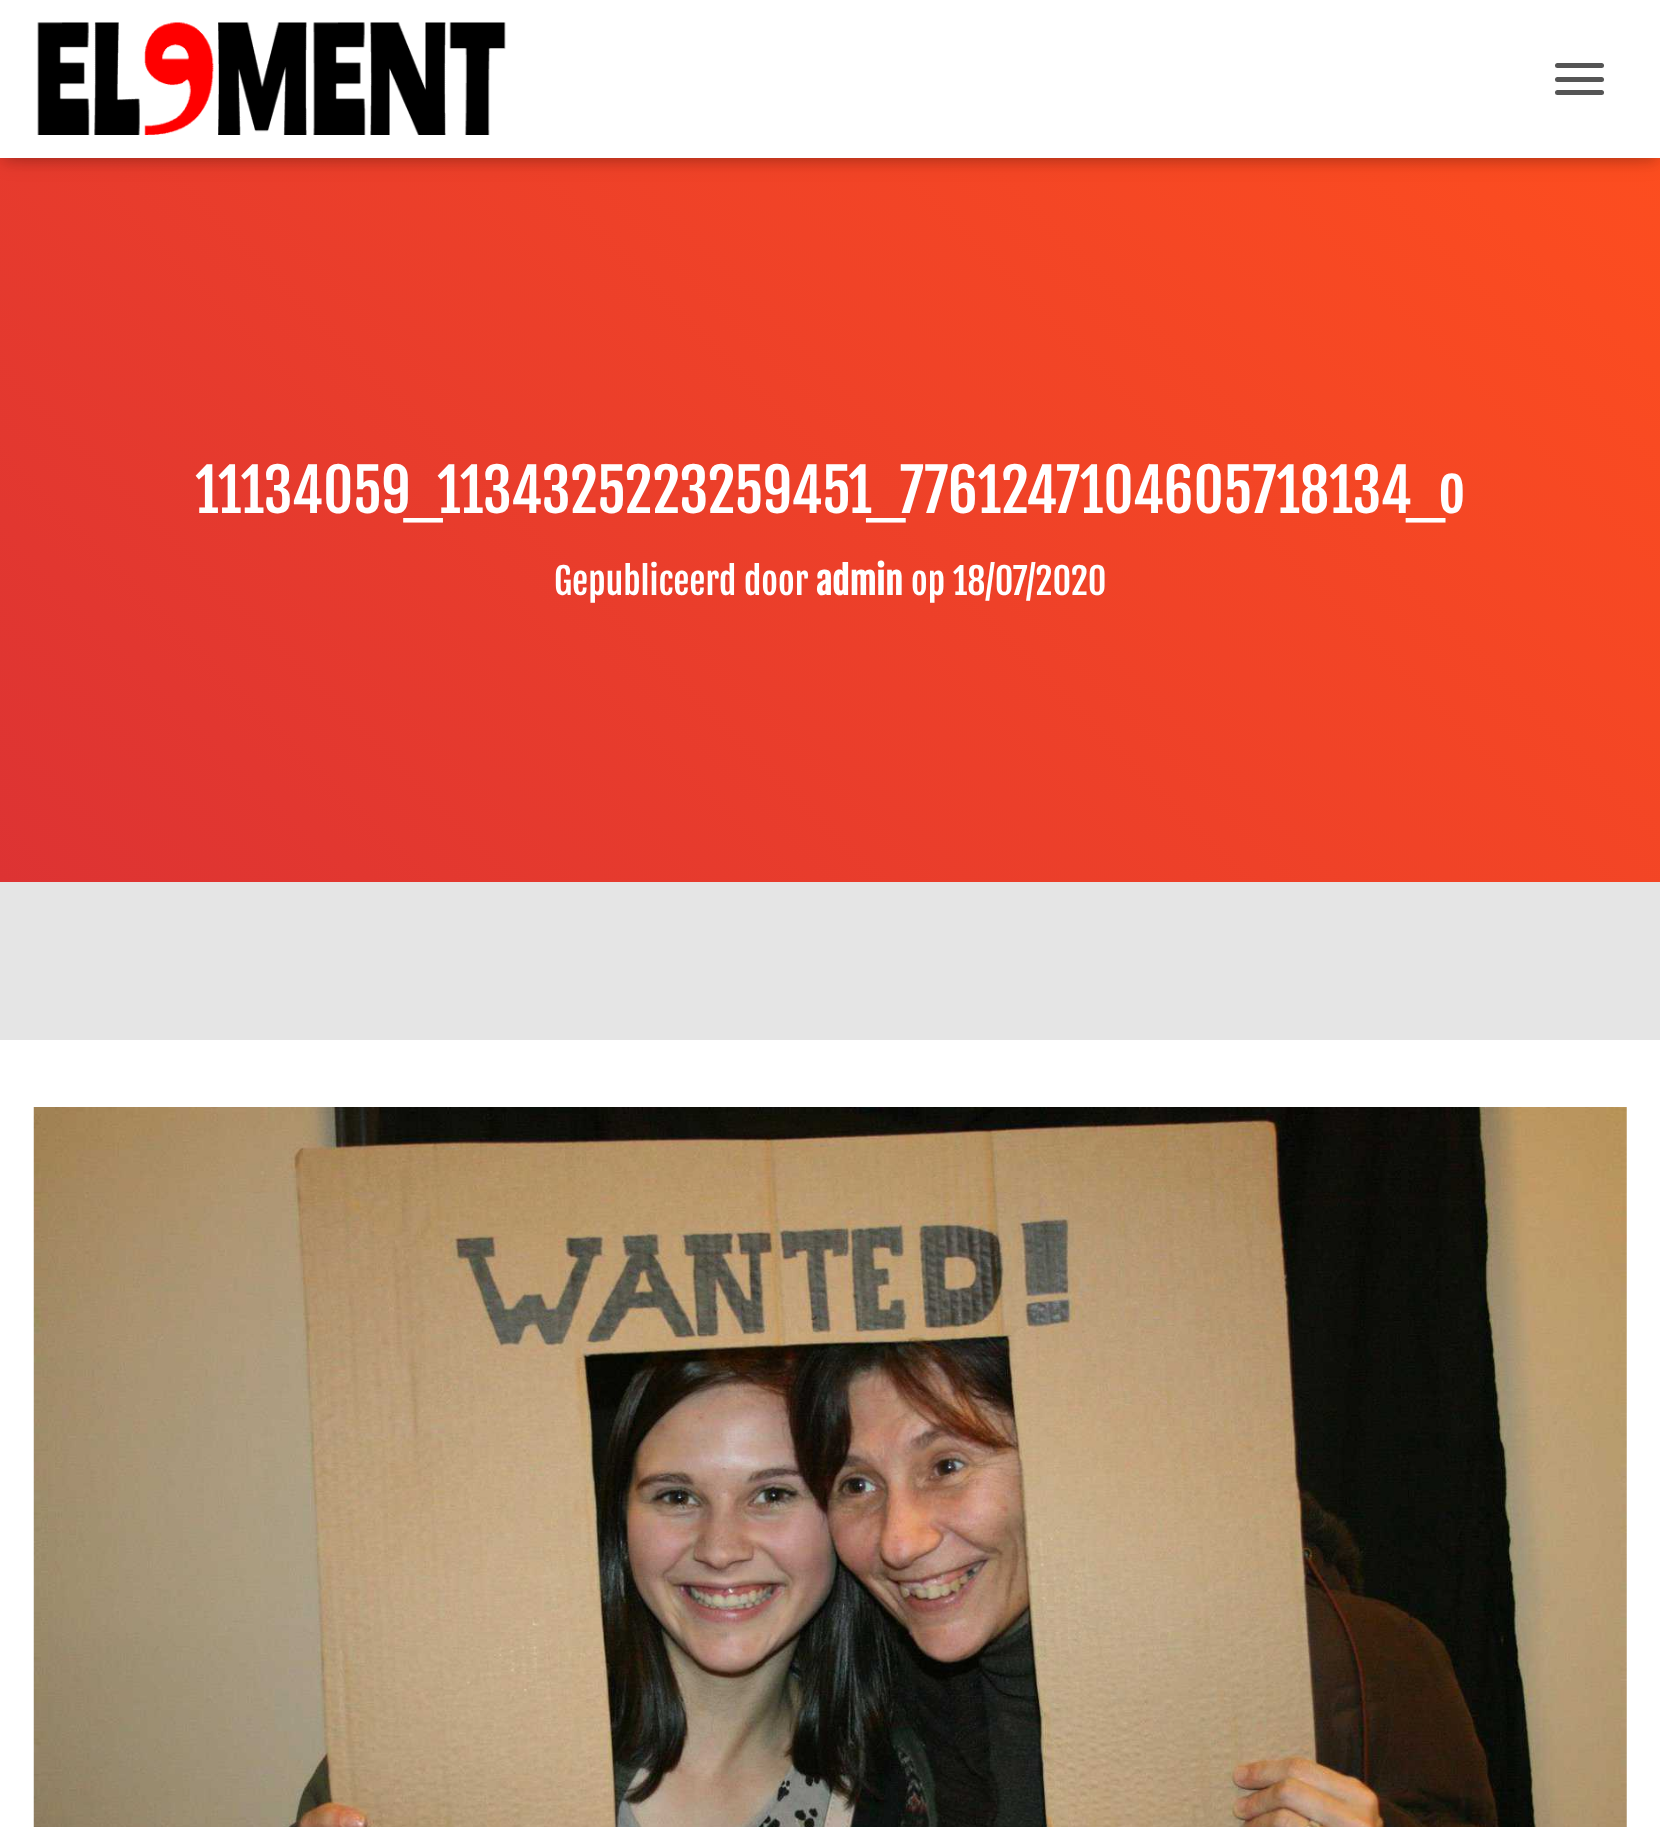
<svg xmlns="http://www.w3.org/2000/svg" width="1660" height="1827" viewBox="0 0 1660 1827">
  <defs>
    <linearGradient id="g1" gradientUnits="userSpaceOnUse" x1="195" y1="1077" x2="1466" y2="-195"><stop offset="0" stop-color="#d33"/><stop offset="1" stop-color="#ff4f1e"/></linearGradient>
  </defs>
  <rect width="100%" height="100%" fill="#e5e5e5"/>
  <path d="M0 158h1660v724H0z" fill="url(#g1)"/>
  <path d="M5 14h1651v148H5z" fill="#0000001a" filter="blur(5.5px)"/>
  <path d="M0 2h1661v158H0z" fill="#0000001f" filter="blur(11px)"/>
  <path d="M14 16h1633v130H14z" fill="#0000006b" filter="blur(11px)"/>
  <path d="M0 0h1660v158H0z" fill="#fff"/>
  <image x="37" y="22" width="469" height="113" href="img/1.png"/>
  <rect x="1555" y="63" width="49" height="5" rx="2.5" fill="#555"/>
  <rect x="1555" y="77" width="49" height="5" rx="2.5" fill="#555"/>
  <rect x="1555" y="90" width="49" height="5" rx="2.5" fill="#555"/>
  <path d="M0 1040h1660v787H0z" fill="#fff"/>
  <image x="33" y="1107" width="1594" height="720" href="img/2.png"/>
  <text x="195" y="513" font-family="Fjalla One" font-size="58.5" fill="#fff">11134059_1134325223259451_7761247104605718134_o</text>
  <text x="554" y="595" font-family="Fjalla One" font-size="36" fill="#fff">Gepubliceerd door</text>
  <text x="816" y="595" font-family="Fjalla One" font-size="36" font-weight="bold" fill="#fff">admin</text>
  <text x="911" y="595" font-family="Fjalla One" font-size="36" fill="#fff">op 18/07/2020</text>
</svg>
